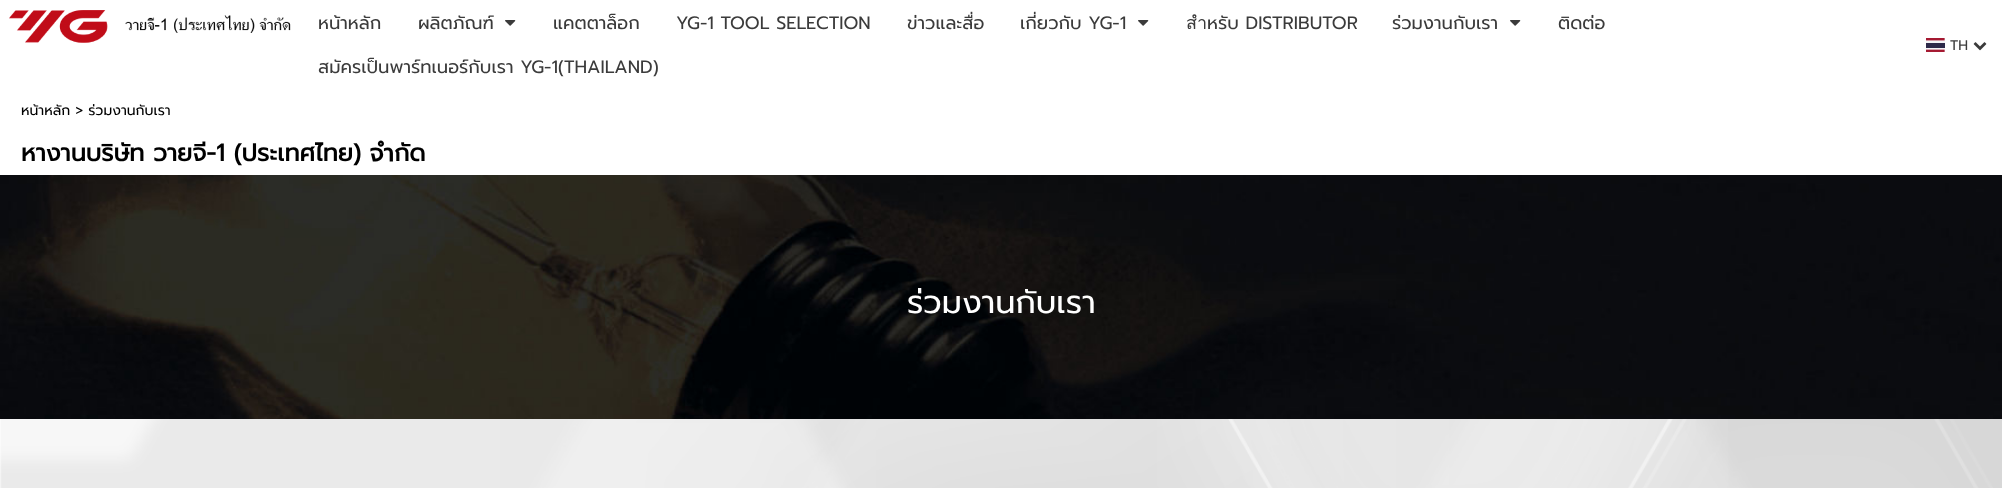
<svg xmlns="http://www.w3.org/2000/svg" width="2002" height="488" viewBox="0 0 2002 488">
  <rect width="100%" height="100%" fill="#fff"/>
  <image x="9" y="10" width="282" height="33" href="img/1.png"/>
  <image x="505" y="20" width="11" height="6" href="img/2.png"/>
  <image x="1138" y="20" width="11" height="6" href="img/2.png"/>
  <image x="1510" y="20" width="11" height="6" href="img/2.png"/>
  <image x="1926" y="38" width="19" height="14" href="img/3.png"/>
  <image x="1973" y="42" width="14" height="9" href="img/4.png"/>
  <image x="0" y="175" width="2002" height="244" href="img/5.png"/>
  <image x="0" y="419" width="2002" height="69" href="img/6.png"/>
  <g font-family="Prompt" font-size="18" fill="#3b3b3b">
    <text x="318" y="29">หน้าหลัก</text>
    <text x="418" y="29">ผลิตภัณฑ์</text>
    <text x="553" y="29">แคตตาล็อก</text>
    <text x="676" y="29">YG-1 TOOL SELECTION</text>
    <text x="907" y="29">ข่าวและสื่อ</text>
    <text x="1020" y="29">เกี่ยวกับ YG-1</text>
    <text x="1186" y="29">สำหรับ DISTRIBUTOR</text>
    <text x="1392" y="29">ร่วมงานกับเรา</text>
    <text x="1558" y="29">ติดต่อ</text>
    <text x="318" y="73">สมัครเป็นพาร์ทเนอร์กับเรา YG-1(THAILAND)</text>
  </g>
  <text x="1950" y="50" font-family="Prompt" font-size="14" fill="#3b3b3b">TH</text>
  <text x="21" y="115" font-family="Prompt" font-size="14" fill="#000">หน้าหลัก &gt; ร่วมงานกับเรา</text>
  <text x="21" y="161" font-family="Prompt" font-size="24" font-weight="bold" fill="#000">หางานบริษัท วายจี-1 (ประเทศไทย) จำกัด</text>
  <text x="907" y="313" font-family="Prompt" font-size="32" fill="#fff">ร่วมงานกับเรา</text>
</svg>
